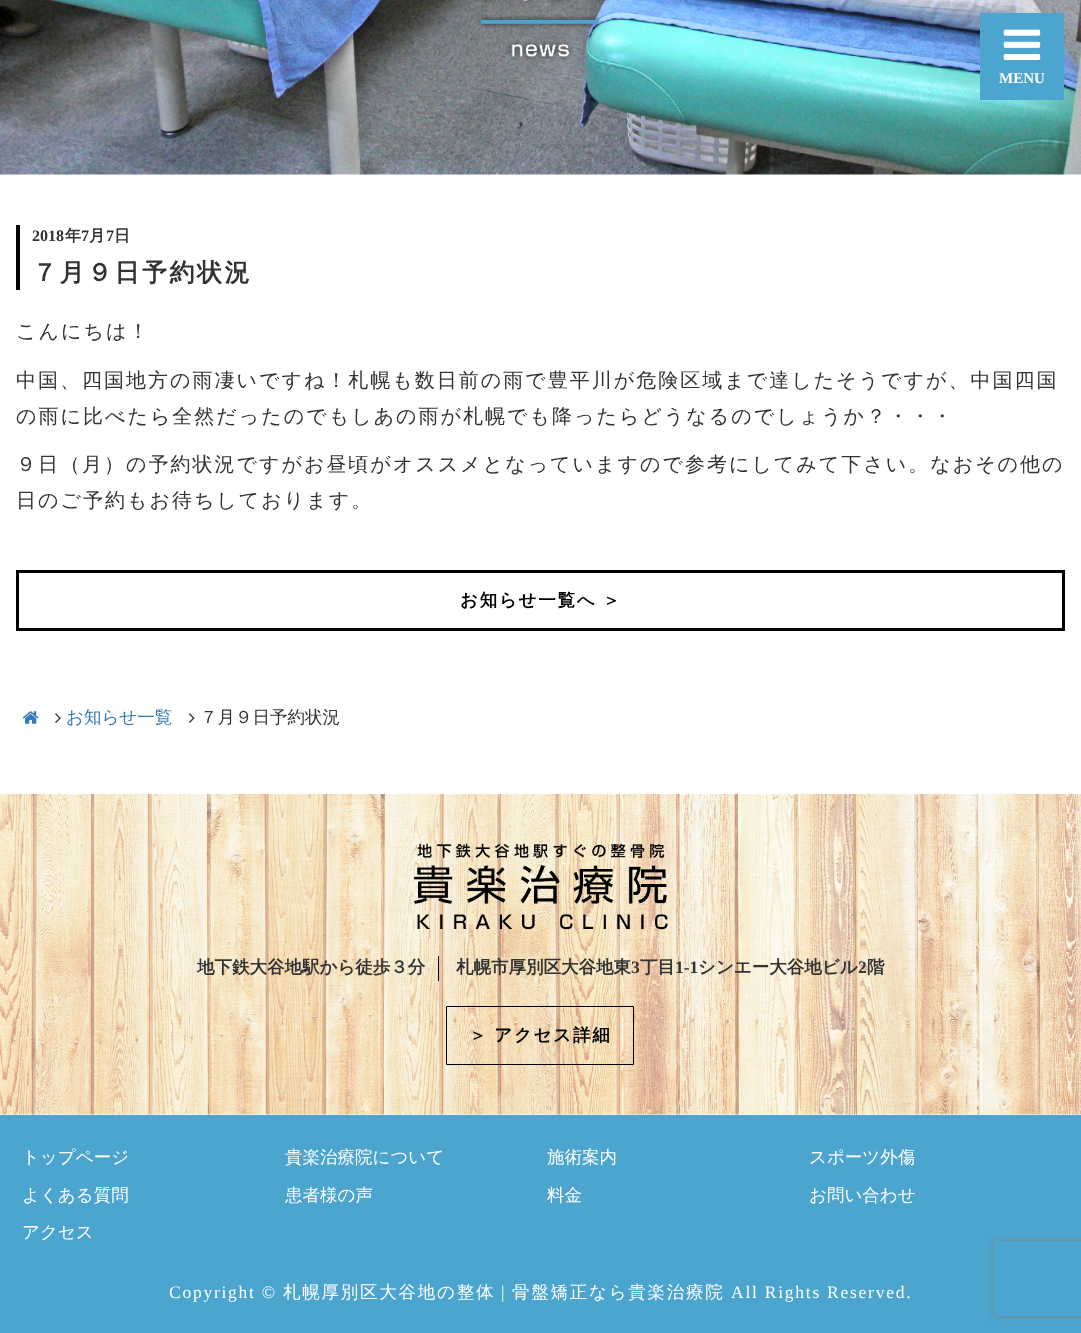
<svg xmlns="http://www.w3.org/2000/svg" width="1081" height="1333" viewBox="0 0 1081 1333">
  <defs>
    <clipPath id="clip1"><path d="M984 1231H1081V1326H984ZM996.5 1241H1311.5C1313 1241 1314 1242 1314 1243.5V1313.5C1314 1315 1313 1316 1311.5 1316H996.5C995 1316 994 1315 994 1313.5V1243.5C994 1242 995 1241 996.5 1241Z" clip-rule="evenodd"/></clipPath>
  </defs>
  <rect width="100%" height="100%" fill="#fff"/>
  <image x="0" y="0" width="1081" height="175" href="img/1.png"/>
  <image x="470" y="0" width="142" height="60" href="img/2.png"/>
  <path d="M980 13h84v87H980z" fill="#4ba5cf"/>
  <image x="1003" y="29" width="38" height="31" href="img/3.png"/>
  <path d="M16 225h4v65H16z" fill="#000"/>
  <path d="M17.5 571.5h1046v58H17.5z" fill="none" stroke="#000" stroke-width="3"/>
  <image x="22" y="711" width="17" height="13" href="img/4.png"/>
  <image x="55" y="713" width="6" height="10" href="img/5.png"/>
  <image x="188" y="713" width="7" height="10" href="img/6.png"/>
  <image x="0" y="794" width="1081" height="321" href="img/7.png"/>
  <image x="413" y="843" width="255" height="87" href="img/8.png"/>
  <path d="M438 956h1v25H438z" fill="#000"/>
  <path d="M446.5 1006.5h187v58H446.5z" fill="none" stroke="#000"/>
  <path d="M0 1115h1081v218H0z" fill="#4ba5cf"/>
  <g clip-path="url(#clip1)">
    <rect x="994" y="1241" width="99" height="75" rx="2.5" fill="#808080" filter="blur(3px)"/>
  </g>
  <text x="999" y="83" font-family="Liberation Serif" font-size="15" font-weight="bold" fill="#fff">MENU</text>
  <text x="32" y="241" font-family="Liberation Serif" font-size="16" font-weight="bold" fill="#333">2018</text>
  <text x="65" y="241" font-family="WenQuanYi Zen Hei" font-size="16" font-weight="bold" fill="#333">年</text>
  <text x="81" y="241" font-family="Liberation Serif" font-size="16" font-weight="bold" fill="#333">7</text>
  <text x="89" y="241" font-family="WenQuanYi Zen Hei" font-size="16" font-weight="bold" fill="#333">月</text>
  <text x="106" y="241" font-family="Liberation Serif" font-size="16" font-weight="bold" fill="#333">7</text>
  <text x="114" y="241" font-family="WenQuanYi Zen Hei" font-size="16" font-weight="bold" fill="#333">日</text>
  <text x="32" y="281" font-family="WenQuanYi Zen Hei" font-size="25" font-weight="bold" letter-spacing="2.5" fill="#333">７月９日予約状況</text>
  <g font-family="WenQuanYi Zen Hei" font-size="20" font-weight="500" letter-spacing="2" fill="#333">
    <text x="16" y="338">こんにちは！</text>
    <text x="16" y="387">中国、四国地方の雨凄いですね！札幌も数日前の雨で豊平川が危険区域まで達したそうですが、中国四国</text>
    <text x="16" y="423">の雨に比べたら全然だったのでもしあの雨が札幌でも降ったらどうなるのでしょうか？・・・</text>
    <text x="16" y="471">９日（月）の予約状況ですがお昼頃がオススメとなっていますので参考にしてみて下さい。なおその他の</text>
    <text x="16" y="507">日のご予約もお待ちしております。</text>
  </g>
  <text x="460" y="606" word-spacing="-1" font-family="WenQuanYi Zen Hei" font-size="17.5" font-weight="bold" letter-spacing="1.75" fill="#000">お知らせ一覧へ ＞</text>
  <text x="66" y="723" font-family="WenQuanYi Zen Hei" font-size="17.5" font-weight="500" fill="#337ab7">お知らせ一覧</text>
  <text x="200" y="723" font-family="WenQuanYi Zen Hei" font-size="17.5" font-weight="500" fill="#333">７月９日予約状況</text>
  <g font-family="WenQuanYi Zen Hei" font-size="17.5" font-weight="bold" fill="#333">
    <text x="197" y="973">地下鉄大谷地駅から徒歩３分</text>
    <text x="456" y="973">札幌市厚別区大谷地東</text>
  </g>
  <text x="631" y="973" font-family="Liberation Serif" font-size="17.5" font-weight="bold" fill="#333">3</text>
  <text x="640" y="973" font-family="WenQuanYi Zen Hei" font-size="17.5" font-weight="bold" fill="#333">丁目</text>
  <text x="675" y="973" font-family="Liberation Serif" font-size="17.5" font-weight="bold" fill="#333">1-1</text>
  <text x="698" y="973" font-family="WenQuanYi Zen Hei" font-size="17.5" font-weight="bold" fill="#333">シンエー大谷地ビル</text>
  <text x="858" y="973" font-family="Liberation Serif" font-size="17.5" font-weight="bold" fill="#333">2</text>
  <text x="867" y="973" font-family="WenQuanYi Zen Hei" font-size="17.5" font-weight="bold" fill="#333">階</text>
  <text x="469" y="1041" word-spacing="-1" font-family="WenQuanYi Zen Hei" font-size="17.5" font-weight="bold" letter-spacing="1.75" fill="#000">＞ アクセス詳細</text>
  <g font-family="WenQuanYi Zen Hei" font-size="17.5" font-weight="500" fill="#fff">
    <text x="22" y="1163">トップページ</text>
    <text x="285" y="1163">貴楽治療院について</text>
    <text x="547" y="1163">施術案内</text>
    <text x="809" y="1163">スポーツ外傷</text>
    <text x="22" y="1201">よくある質問</text>
    <text x="285" y="1201">患者様の声</text>
    <text x="547" y="1201">料金</text>
    <text x="809" y="1201">お問い合わせ</text>
    <text x="22" y="1238">アクセス</text>
  </g>
  <text x="169" y="1298" font-family="Liberation Serif" font-size="17.5" letter-spacing="1.75" fill="#fff">Copyright ©</text>
  <text x="283" y="1298" font-family="WenQuanYi Zen Hei" font-size="17.5" font-weight="500" letter-spacing="1.75" fill="#fff">札幌厚別区大谷地の整体</text>
  <text x="501" y="1298" font-family="Liberation Serif" font-size="17.5" letter-spacing="1.75" fill="#fff">|</text>
  <text x="512" y="1298" font-family="WenQuanYi Zen Hei" font-size="17.5" font-weight="500" letter-spacing="1.75" fill="#fff">骨盤矯正なら貴楽治療院</text>
  <text x="731" y="1298" font-family="Liberation Serif" font-size="17.5" letter-spacing="1.75" fill="#fff">All Rights Reserved.</text>
</svg>
